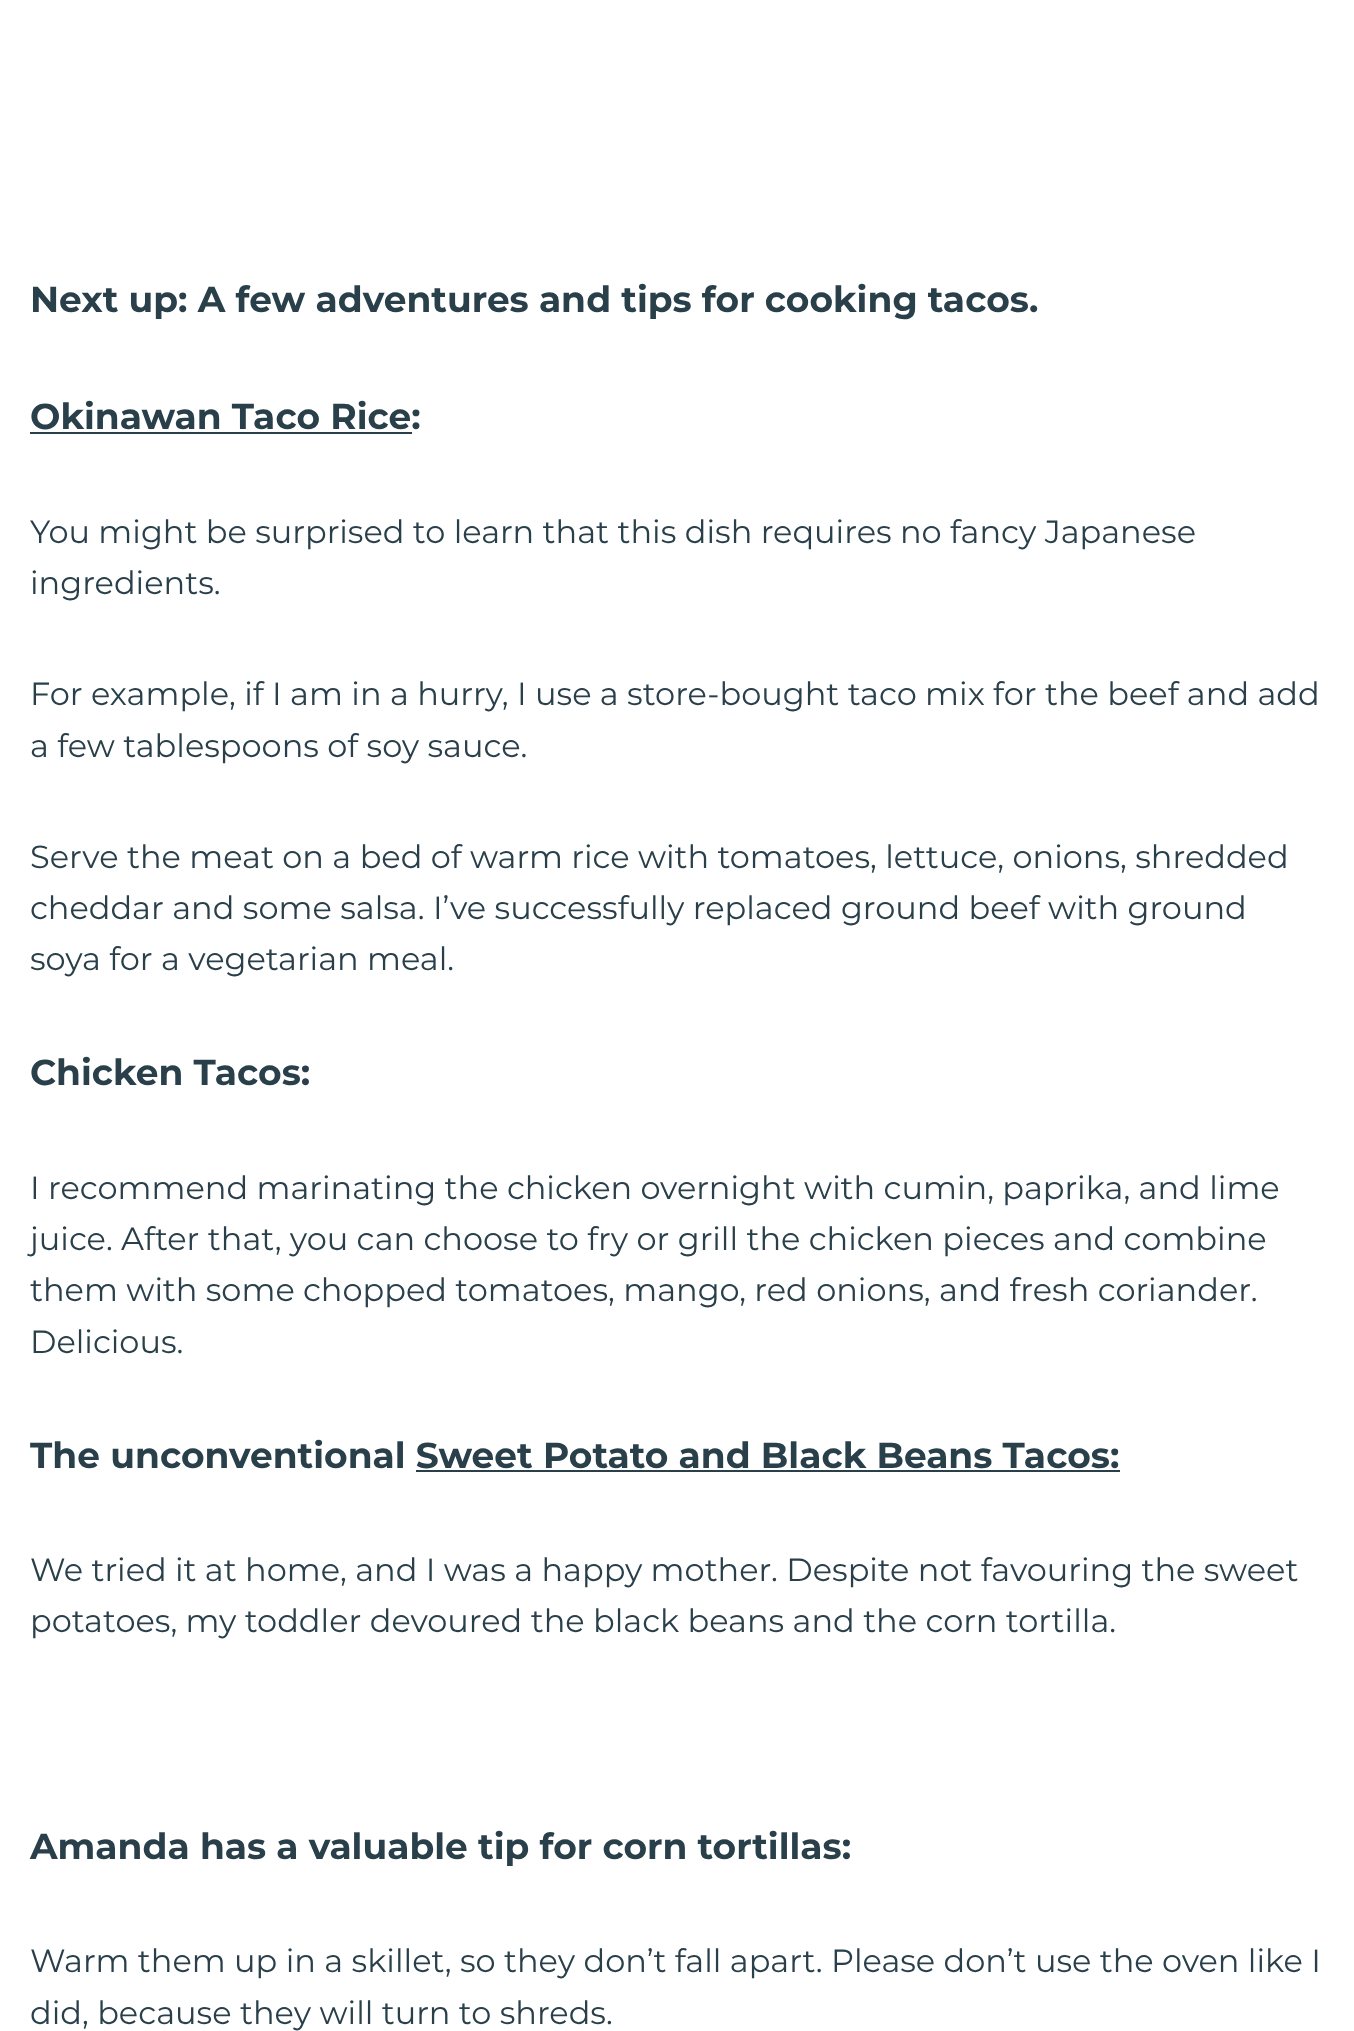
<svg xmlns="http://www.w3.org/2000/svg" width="1354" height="2031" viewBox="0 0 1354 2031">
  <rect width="100%" height="100%" fill="#fff"/>
  <path d="M30 432h382v2H30z" fill="#293f4a"/>
  <path d="M416 1470h704v2H416z" fill="#293f4a"/>
  <g font-family="Montserrat" font-size="36" font-weight="bold" fill="#293f4a">
    <text x="30" y="312">Next up: A few adventures and tips for cooking tacos.</text>
    <text x="30" y="429">Okinawan Taco Rice:</text>
  </g>
  <g font-family="Montserrat" font-size="32" fill="#293f4a">
    <text x="30" y="543">You might be surprised to learn that this dish requires no fancy Japanese</text>
    <text x="30" y="594">ingredients.</text>
    <text x="30" y="705">For example, if I am in a hurry, I use a store-bought taco mix for the beef and add</text>
    <text x="30" y="757">a few tablespoons of soy sauce.</text>
    <text x="30" y="868">Serve the meat on a bed of warm rice with tomatoes, lettuce, onions, shredded</text>
    <text x="30" y="919">cheddar and some salsa. I’ve successfully replaced ground beef with ground</text>
    <text x="30" y="970">soya for a vegetarian meal.</text>
  </g>
  <text x="30" y="1085" font-family="Montserrat" font-size="36" font-weight="bold" fill="#293f4a">Chicken Tacos:</text>
  <g font-family="Montserrat" font-size="32" fill="#293f4a">
    <text x="30" y="1199">I recommend marinating the chicken overnight with cumin, paprika, and lime</text>
    <text x="30" y="1250">juice. After that, you can choose to fry or grill the chicken pieces and combine</text>
    <text x="30" y="1301">them with some chopped tomatoes, mango, red onions, and fresh coriander.</text>
    <text x="30" y="1353">Delicious.</text>
  </g>
  <text x="30" y="1468" font-family="Montserrat" font-size="36" font-weight="bold" fill="#293f4a">The unconventional Sweet Potato and Black Beans Tacos:</text>
  <g font-family="Montserrat" font-size="32" fill="#293f4a">
    <text x="30" y="1581">We tried it at home, and I was a happy mother. Despite not favouring the sweet</text>
    <text x="30" y="1632">potatoes, m</text>
    <text x="219" y="1632">y toddler devoured the black beans and the corn tortilla.</text>
  </g>
  <text x="30" y="1859" font-family="Montserrat" font-size="36" font-weight="bold" fill="#293f4a">Amanda has a valuable tip for corn tortillas:</text>
  <g font-family="Montserrat" font-size="32" fill="#293f4a">
    <text x="30" y="1972">W</text>
    <text x="64" y="1972">arm them up in a skillet, so they don’t fall apart. Please don’t use the oven like I</text>
    <text x="30" y="2024">did, because they will turn to shreds.</text>
  </g>
</svg>
